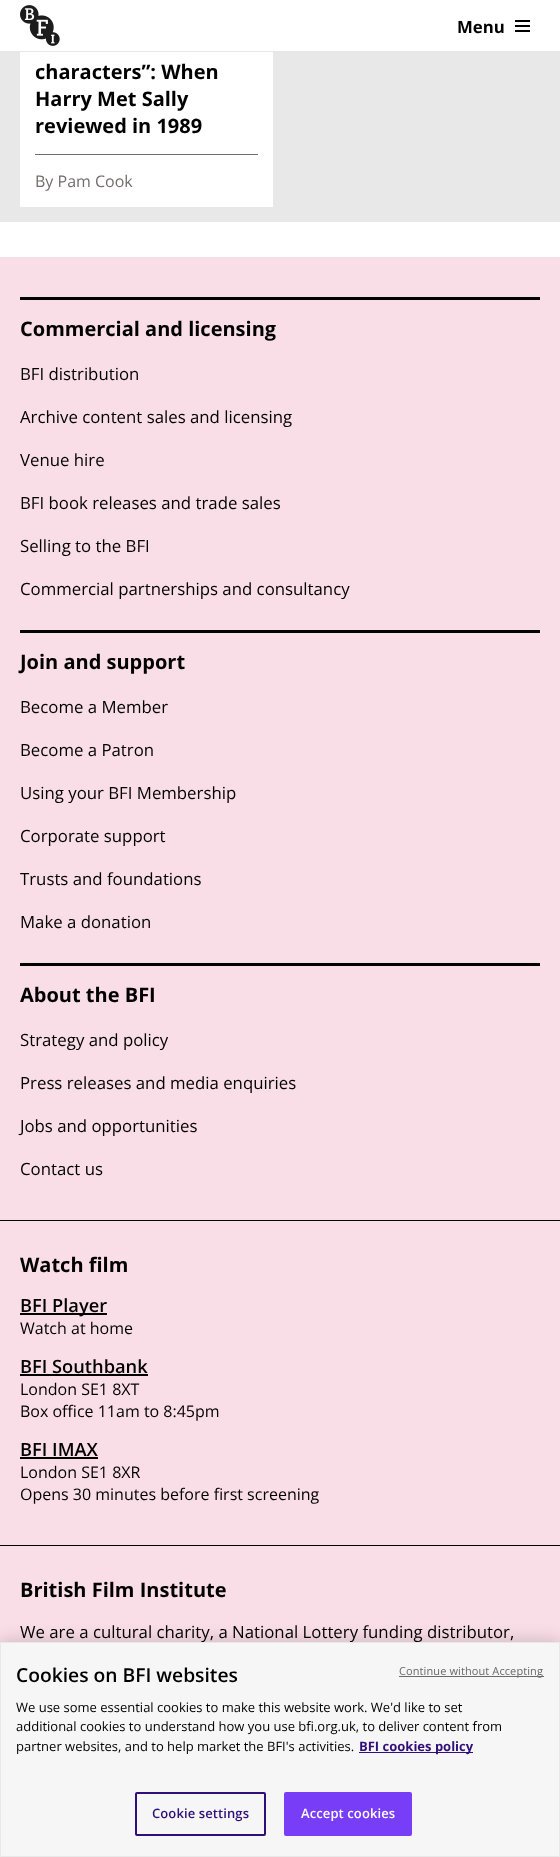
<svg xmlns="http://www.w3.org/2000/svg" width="560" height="1857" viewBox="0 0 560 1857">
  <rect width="100%" height="100%" fill="#fff"/>
  <path d="M0 51h560v1H0z" fill="#e9e8e8"/>
  <image x="20" y="5" width="40" height="41" href="img/1.png"/>
  <path d="M515 20h15v2H515z" fill="#000"/>
  <path d="M515 25h15v2H515z" fill="#000"/>
  <path d="M515 30h15v2H515z" fill="#000"/>
  <path d="M540 52h20v170H540z" fill="#e9e8e8"/>
  <path d="M0 52h540v170H0z" fill="#e9e8e8"/>
  <path d="M20 52h253v155H20z" fill="#fff"/>
  <path d="M35 154h223v1H35z" fill="#746d6d"/>
  <path d="M0 257h560v1385H0z" fill="#f9dde7"/>
  <path d="M20 297h520v3H20z" fill="#000"/>
  <path d="M20 630h520v3H20z" fill="#000"/>
  <path d="M20 963h520v3H20z" fill="#000"/>
  <path d="M0 1220h560v1H0z" fill="#000"/>
  <path d="M20 1313h87v2H20z" fill="#000"/>
  <path d="M20 1374h128v2H20z" fill="#000"/>
  <path d="M20 1457h78v2H20z" fill="#000"/>
  <path d="M0 1545h560v1H0z" fill="#000"/>
  <path d="M0 1642h560v215H0z" fill="#00000033" filter="blur(9px)"/>
  <text x="457" y="33" font-family="Open Sans" font-size="16.8" font-weight="bold" fill="#000">Menu</text>
  <g font-family="Open Sans" font-size="20" font-weight="bold" fill="#000">
    <text x="35" y="79">characters”: When</text>
    <text x="35" y="106">Harry Met Sally</text>
    <text x="35" y="133">reviewed in 1989</text>
  </g>
  <text x="35" y="187" font-family="Open Sans" font-size="16" fill="#746d6d">By Pam Cook</text>
  <text x="20" y="336" font-family="Open Sans" font-size="20" font-weight="bold" fill="#000">Commercial and licensing</text>
  <g font-family="Open Sans" font-size="16.8" fill="#000">
    <text x="20" y="380">BFI distribution</text>
    <text x="20" y="423">Archive content sales and licensing</text>
    <text x="20" y="466">Venue hire</text>
    <text x="20" y="509">BFI book releases and trade sales</text>
    <text x="20" y="552">Selling to the BFI</text>
    <text x="20" y="595">Commercial partnerships and consultancy</text>
  </g>
  <text x="20" y="669" font-family="Open Sans" font-size="20" font-weight="bold" fill="#000">Join and support</text>
  <g font-family="Open Sans" font-size="16.8" fill="#000">
    <text x="20" y="713">Become a Member</text>
    <text x="20" y="756">Become a Patron</text>
    <text x="20" y="799">Using your BFI Membership</text>
    <text x="20" y="842">Corporate support</text>
    <text x="20" y="885">Trusts and foundations</text>
    <text x="20" y="928">Make a donation</text>
  </g>
  <text x="20" y="1002" font-family="Open Sans" font-size="20" font-weight="bold" fill="#000">About the BFI</text>
  <g font-family="Open Sans" font-size="16.8" fill="#000">
    <text x="20" y="1046">Strategy and policy</text>
    <text x="20" y="1089">Press releases and media enquiries</text>
    <text x="20" y="1132">Jobs and opportunities</text>
    <text x="20" y="1175">Contact us</text>
  </g>
  <text x="20" y="1272" font-family="Open Sans" font-size="20" font-weight="bold" fill="#000">Watch film</text>
  <text x="20" y="1312" font-family="Open Sans" font-size="18.25" font-weight="600" fill="#000">BFI Player</text>
  <text x="20" y="1334" font-family="Open Sans" font-size="16" fill="#000">Watch at home</text>
  <text x="20" y="1373" font-family="Open Sans" font-size="18.25" font-weight="600" fill="#000">BFI Southbank</text>
  <g font-family="Open Sans" font-size="16" fill="#000">
    <text x="20" y="1395">London SE1 8XT</text>
    <text x="20" y="1417">Box office 11am to 8:45pm</text>
  </g>
  <text x="20" y="1456" font-family="Open Sans" font-size="18.25" font-weight="600" fill="#000">BFI IMAX</text>
  <g font-family="Open Sans" font-size="16" fill="#000">
    <text x="20" y="1478">London SE1 8XR</text>
    <text x="20" y="1500">Opens 30 minutes before first screening</text>
  </g>
  <text x="20" y="1597" font-family="Open Sans" font-size="20" font-weight="bold" fill="#000">British Film Institute</text>
  <text x="20" y="1638" font-family="Open Sans" font-size="16.8" fill="#000">We are a cultural charity, a National Lottery funding distributor,</text>
  <path d="M0.5 1642.5h559v214H0.5z" fill="#f6f6f6" stroke="#e9e8e8"/>
  <path d="M399 1676h145v1H399z" fill="#696969"/>
  <text x="399" y="1675" font-family="Open Sans" font-size="11" letter-spacing="0.1" fill="#696969">Continue without Accepting</text>
  <text x="16" y="1682" font-family="Open Sans" font-size="19.25" font-weight="600" fill="#000">Cookies on BFI websites</text>
  <g font-family="Open Sans" font-size="13" fill="#000">
    <text x="16" y="1712">We use some essential cookies to make this website work. We'd like to set</text>
    <text x="16" y="1731">additional cookies to understand how you use bfi.org.uk, to deliver content from</text>
    <text x="16" y="1751">partner websites, and to help market the BFI's activities.</text>
  </g>
  <path d="M359 1752h114v1H359z" fill="#310f7a"/>
  <text x="359" y="1751" font-family="Open Sans" font-size="13" font-weight="bold" fill="#310f7a">BFI cookies policy</text>
  <rect x="136" y="1793" width="129" height="42" rx="1" fill="none" stroke="#310f7a" stroke-width="2"/>
  <text x="152" y="1818" font-family="Open Sans" font-size="13" font-weight="600" letter-spacing="0.1" fill="#310f7a">Cookie settings</text>
  <rect x="285" y="1793" width="126" height="42" rx="1" fill="#783df6" stroke="#783df6" stroke-width="2"/>
  <text x="301" y="1818" font-family="Open Sans" font-size="13" font-weight="600" letter-spacing="0.1" fill="#fff">Accept cookies</text>
</svg>
